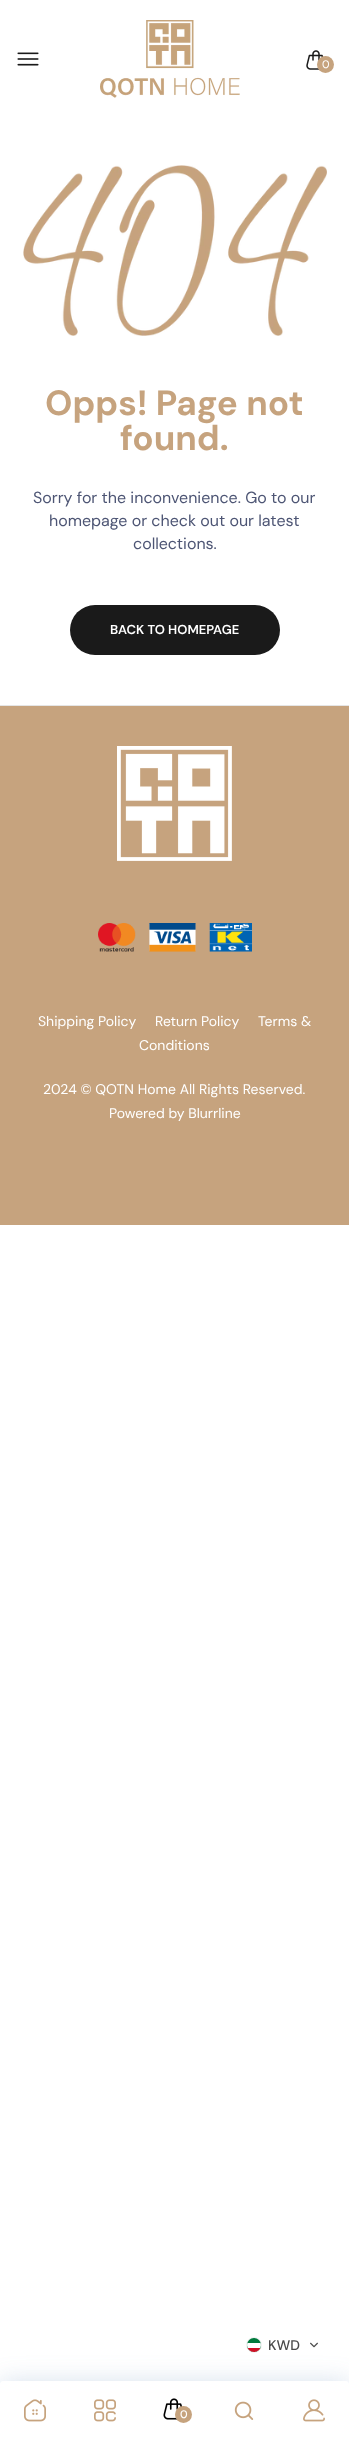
<svg xmlns="http://www.w3.org/2000/svg" width="349" height="2441" viewBox="0 0 349 2441">
  <defs>
    <clipPath id="clip1"><rect x="247" y="2338" width="14" height="14" rx="7"/></clipPath>
  </defs>
  <rect width="100%" height="100%" fill="#fff"/>
  <image x="17" y="52" width="22" height="14" href="img/1.png"/>
  <image x="100" y="20" width="140" height="78" href="img/2.png"/>
  <image x="306" y="50" width="18" height="20" href="img/3.png"/>
  <circle cx="325.5" cy="64.5" r="8.5" fill="#c6a37e"/>
  <image x="23" y="165" width="304" height="171" href="img/4.png"/>
  <rect x="70" y="605" width="210" height="50" rx="25" fill="#1a1a1a"/>
  <path d="M0 705h349v1H0z" fill="#e5e5e5"/>
  <path d="M0 706h349v519H0z" fill="#c6a37e"/>
  <image x="117" y="746" width="115" height="115" href="img/5.png"/>
  <image x="98" y="923" width="154" height="29" href="img/6.png"/>
  <rect y="2381" width="349" height="60" rx="3" fill="#3d6ea833" filter="blur(12.5px)"/>
  <path d="M3 2381H346C347.5 2381 349 2382.5 349 2384V2441H0V2384C0 2382.5 1.5 2381 3 2381Z" fill="#fff"/>
  <image x="24" y="2399" width="22" height="23" href="img/7.png"/>
  <image x="94" y="2399" width="22" height="23" href="img/8.png"/>
  <image x="163" y="2398" width="20" height="22" href="img/9.png"/>
  <circle cx="183.5" cy="2414.5" r="8.5" fill="#c6a37e"/>
  <image x="234" y="2401" width="20" height="19" href="img/10.png"/>
  <image x="303" y="2399" width="22" height="23" href="img/11.png"/>
  <circle cx="254" cy="2345" r="7.5" fill="none" stroke="#f0f1f2"/>
  <circle cx="254" cy="2345" r="7" fill="#007a3d"/>
  <g clip-path="url(#clip1)">
    <path d="M247 2343H261V2345C261 2349 258 2352 254 2352C250 2352 247 2349 247 2345Z" fill="#fff"/>
    <path d="M247 2348h14v4H247z" fill="#ce1126"/>
  </g>
  <image x="310" y="2342" width="8" height="6" href="img/12.png"/>
  <text x="322" y="68" font-family="DM Sans" font-size="11" fill="#fff">0</text>
  <g font-family="DM Sans" font-size="35" font-weight="bold" fill="#c6a37e">
    <text x="45" y="415">Opps! Page not</text>
    <text x="120" y="450">found.</text>
  </g>
  <g font-family="DM Sans" font-size="16" fill="#4d5574">
    <text x="33" y="503">Sorry for the inconvenience. Go to our</text>
    <text x="49" y="526">homepage or check out our latest</text>
    <text x="133" y="549">collections.</text>
  </g>
  <text x="110" y="634" font-family="DM Sans" font-size="13" font-weight="600" fill="#fff">BACK TO HOMEPAGE</text>
  <g font-family="DM Sans" font-size="14" fill="#fff">
    <text x="38" y="1026">Shipping Policy</text>
    <text x="155" y="1026">Return Policy</text>
    <text x="258" y="1026">Terms &amp;</text>
    <text x="139" y="1050">Conditions</text>
    <text x="43" y="1094">2024 © QOTN Home All Rights Reserved.</text>
    <text x="109" y="1118">Powered by Blurrline</text>
  </g>
  <text x="180" y="2418" font-family="DM Sans" font-size="11" font-weight="500" fill="#fff">0</text>
  <text x="268" y="2350" font-family="DM Sans" font-size="14" font-weight="500" fill="#4a4a4a">KWD</text>
</svg>
